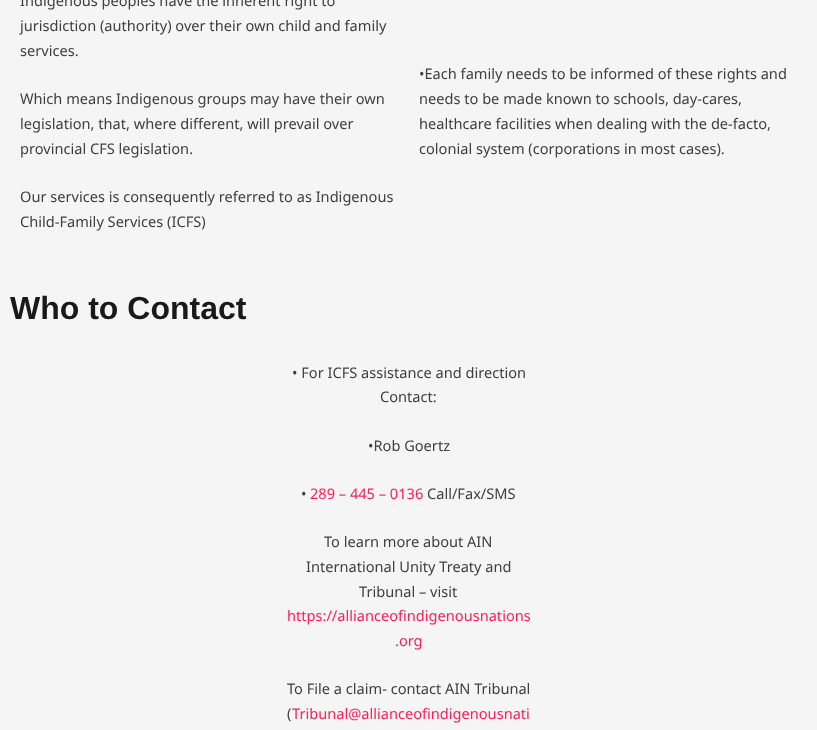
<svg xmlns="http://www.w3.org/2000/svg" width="817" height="730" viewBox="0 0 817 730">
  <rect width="100%" height="100%" fill="#f5f5f5"/>
  <g font-family="Noto Sans" font-size="14.6" fill="#404040">
    <text x="20" y="6">Indigenous peoples have the inherent right to</text>
    <text x="20" y="31">jurisdiction (authority) over their own child and family</text>
    <text x="20" y="56">services.</text>
    <text x="20" y="104">Which means Indigenous groups may have their own</text>
    <text x="20" y="129">legislation, that, where different, will prevail over</text>
    <text x="20" y="154">provincial CFS legislation.</text>
    <text x="20" y="202">Our services is consequently referred to as Indigenous</text>
    <text x="20" y="227">Child-Family Services (ICFS)</text>
    <text x="419" y="79">•Each family needs to be informed of these rights and</text>
    <text x="419" y="104">needs to be made known to schools, day-cares,</text>
    <text x="419" y="129">healthcare facilities when dealing with the de-facto,</text>
    <text x="419" y="154">colonial system (corporations in most cases).</text>
  </g>
  <text x="10" y="319" font-family="Liberation Sans" font-size="32" font-weight="bold" fill="#191919">Who to Contact</text>
  <g font-family="Noto Sans" font-size="14.6" fill="#404040">
    <text x="292" y="378">• For ICFS assistance and direction</text>
    <text x="380" y="402">Contact:</text>
    <text x="368" y="451">•Rob Goertz</text>
    <text x="301" y="499">•</text>
  </g>
  <text x="310" y="499" font-family="Noto Sans" font-size="14.6" fill="#fb2056">289 – 445 – 0136</text>
  <g font-family="Noto Sans" font-size="14.6" fill="#404040">
    <text x="427" y="499">Call/Fax/SMS</text>
    <text x="324" y="547">To learn more about AIN</text>
    <text x="306" y="572">International Unity Treaty and</text>
    <text x="359" y="597">Tribunal – visit</text>
  </g>
  <g font-family="Noto Sans" font-size="14.6" fill="#fb2056">
    <text x="287" y="621">https://allianceofindigenousnations</text>
    <text x="395" y="646">.org</text>
  </g>
  <g font-family="Noto Sans" font-size="14.6" fill="#404040">
    <text x="287" y="694">To File a claim- contact AIN Tribunal</text>
    <text x="287" y="719">(</text>
  </g>
  <text x="292" y="719" font-family="Noto Sans" font-size="14.6" fill="#fb2056">Tribunal@allianceofindigenousnati</text>
</svg>
